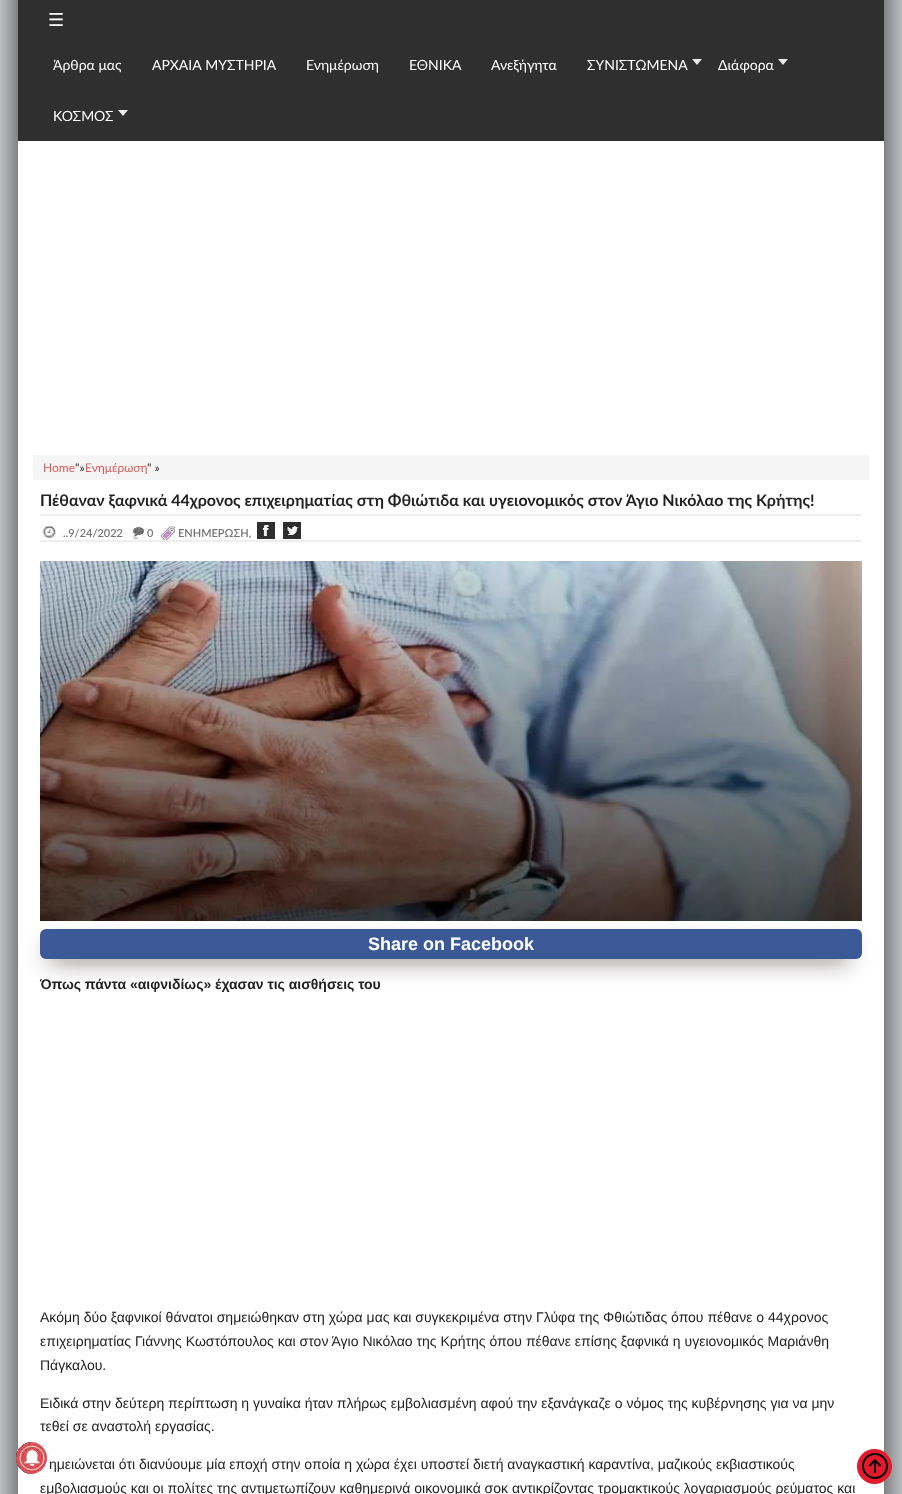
<svg xmlns="http://www.w3.org/2000/svg" width="902" height="1494" viewBox="0 0 902 1494">
  <rect width="100%" height="100%" fill="#dddfe2"/>
  <path d="M18 -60h866v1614H18z" fill="#222" filter="blur(20px)"/>
  <path d="M18 141h866v1353H18z" fill="#fff"/>
  <image x="16" y="1442" width="31" height="32" href="img/1.png"/>
  <path d="M18 0h866v141H18z" fill="#2f2f2f"/>
  <path d="M692 59H702L697 65Z" fill="#ece8e9"/>
  <path d="M778 59H788L783 65Z" fill="#ece8e9"/>
  <path d="M118 110H128L123 116Z" fill="#ece8e9"/>
  <path d="M33 455h836v25H33z" fill="#f5f5f5"/>
  <path d="M40 514h822v2H40z" fill="#eee"/>
  <path d="M40 540h822v2H40z" fill="#eee"/>
  <image x="42" y="526" width="14" height="13" href="img/2.png"/>
  <image x="129" y="526" width="15" height="13" href="img/3.png"/>
  <image x="161" y="526" width="14" height="14" href="img/4.png"/>
  <image x="257" y="522" width="18" height="17" href="img/5.png"/>
  <image x="283" y="522" width="18" height="17" href="img/6.png"/>
  <image x="40" y="561" width="822" height="360" href="img/7.png"/>
  <path d="M49 950h800v8H49z" fill="#140000" filter="blur(12px)"/>
  <rect x="40" y="929" width="822" height="30" rx="6" fill="#3b5997"/>
  <circle cx="874.5" cy="1466.5" r="17.5" fill="#e5192c"/>
  <image x="862" y="1453" width="26" height="26" href="img/8.png"/>
  <text x="48" y="26" font-family="DejaVu Sans" font-size="18" fill="#fff">☰</text>
  <g font-family="Lato" font-size="14" fill="#fff">
    <text x="53" y="70">Άρθρα μας</text>
    <text x="152" y="70">ΑΡΧΑΙΑ ΜΥΣΤΗΡΙΑ</text>
    <text x="306" y="70">Ενημέρωση</text>
    <text x="409" y="70">ΕΘΝΙΚΆ</text>
    <text x="491" y="70">Ανεξήγητα</text>
    <text x="587" y="70">ΣΥΝΙΣΤΩΜΕΝΑ</text>
    <text x="718" y="70">Διάφορα</text>
    <text x="53" y="121">ΚΟΣΜΟΣ</text>
  </g>
  <text x="43" y="472" font-family="Lato" font-size="12" fill="#df5959">Home</text>
  <text x="75" y="472" font-family="Lato" font-size="12" fill="#222">"»</text>
  <text x="85" y="472" font-family="Lato" font-size="12" fill="#df5959">Ενημέρωση</text>
  <text x="147" y="472" font-family="Lato" font-size="12" fill="#222">" »</text>
  <text x="40" y="506" font-family="Lato" font-size="16" font-weight="bold" fill="#222">Πέθαναν ξαφνικά 44χρονος επιχειρηματίας στη Φθιώτιδα και υγειονομικός στον Άγιο Νικόλαο της Κρήτης!</text>
  <g font-family="Lato" font-size="11" font-weight="600" fill="#757575">
    <text x="63" y="537">..9/24/2022</text>
    <text x="147" y="537">0</text>
  </g>
  <text x="134" y="537" font-family="Lato" font-size="11" font-weight="600" font-style="italic" fill="#757575">_</text>
  <text x="178" y="537" font-family="Lato" font-size="11" font-weight="600" fill="#757575">ΕΝΗΜΕΡΩΣΗ,</text>
  <text x="368" y="950" font-family="Liberation Sans" font-size="18" font-weight="bold" fill="#fff">Share on Facebook</text>
  <text x="40" y="989" font-family="Liberation Sans" font-size="14" font-weight="bold" fill="#222">Όπως πάντα «αιφνιδίως» έχασαν τις αισθήσεις του</text>
  <g font-family="Liberation Sans" font-size="14" fill="#222">
    <text x="40" y="1322">Ακόμη δύο ξαφνικοί θάνατοι σημειώθηκαν στη χώρα μας και συγκεκριμένα στην Γλύφα της Φθιώτιδας όπου πέθανε ο 44χρονος</text>
    <text x="40" y="1346">επιχειρηματίας Γιάννης Κωστόπουλος και στον Άγιο Νικόλαο της Κρήτης όπου πέθανε επίσης ξαφνικά η υγειονομικός Μαριάνθη</text>
    <text x="40" y="1370">Πάγκαλου.</text>
    <text x="40" y="1408">Ειδικά στην δεύτερη περίπτωση η γυναίκα ήταν πλήρως εμβολιασμένη αφού την εξανάγκαζε ο νόμος της κυβέρνησης για να μην</text>
    <text x="40" y="1431">τεθεί σε αναστολή εργασίας.</text>
    <text x="49" y="1469">ημειώνεται ότι διανύουμε μία εποχή στην οποία η χώρα έχει υποστεί διετή αναγκαστική καραντίνα, μαζικούς εκβιαστικούς</text>
    <text x="40" y="1493">εμβολιασμούς και οι πολίτες της αντιμετωπίζουν καθημερινά οικονομικά σοκ αντικρίζοντας τρομακτικούς λογαριασμούς ρεύματος και</text>
  </g>
</svg>
